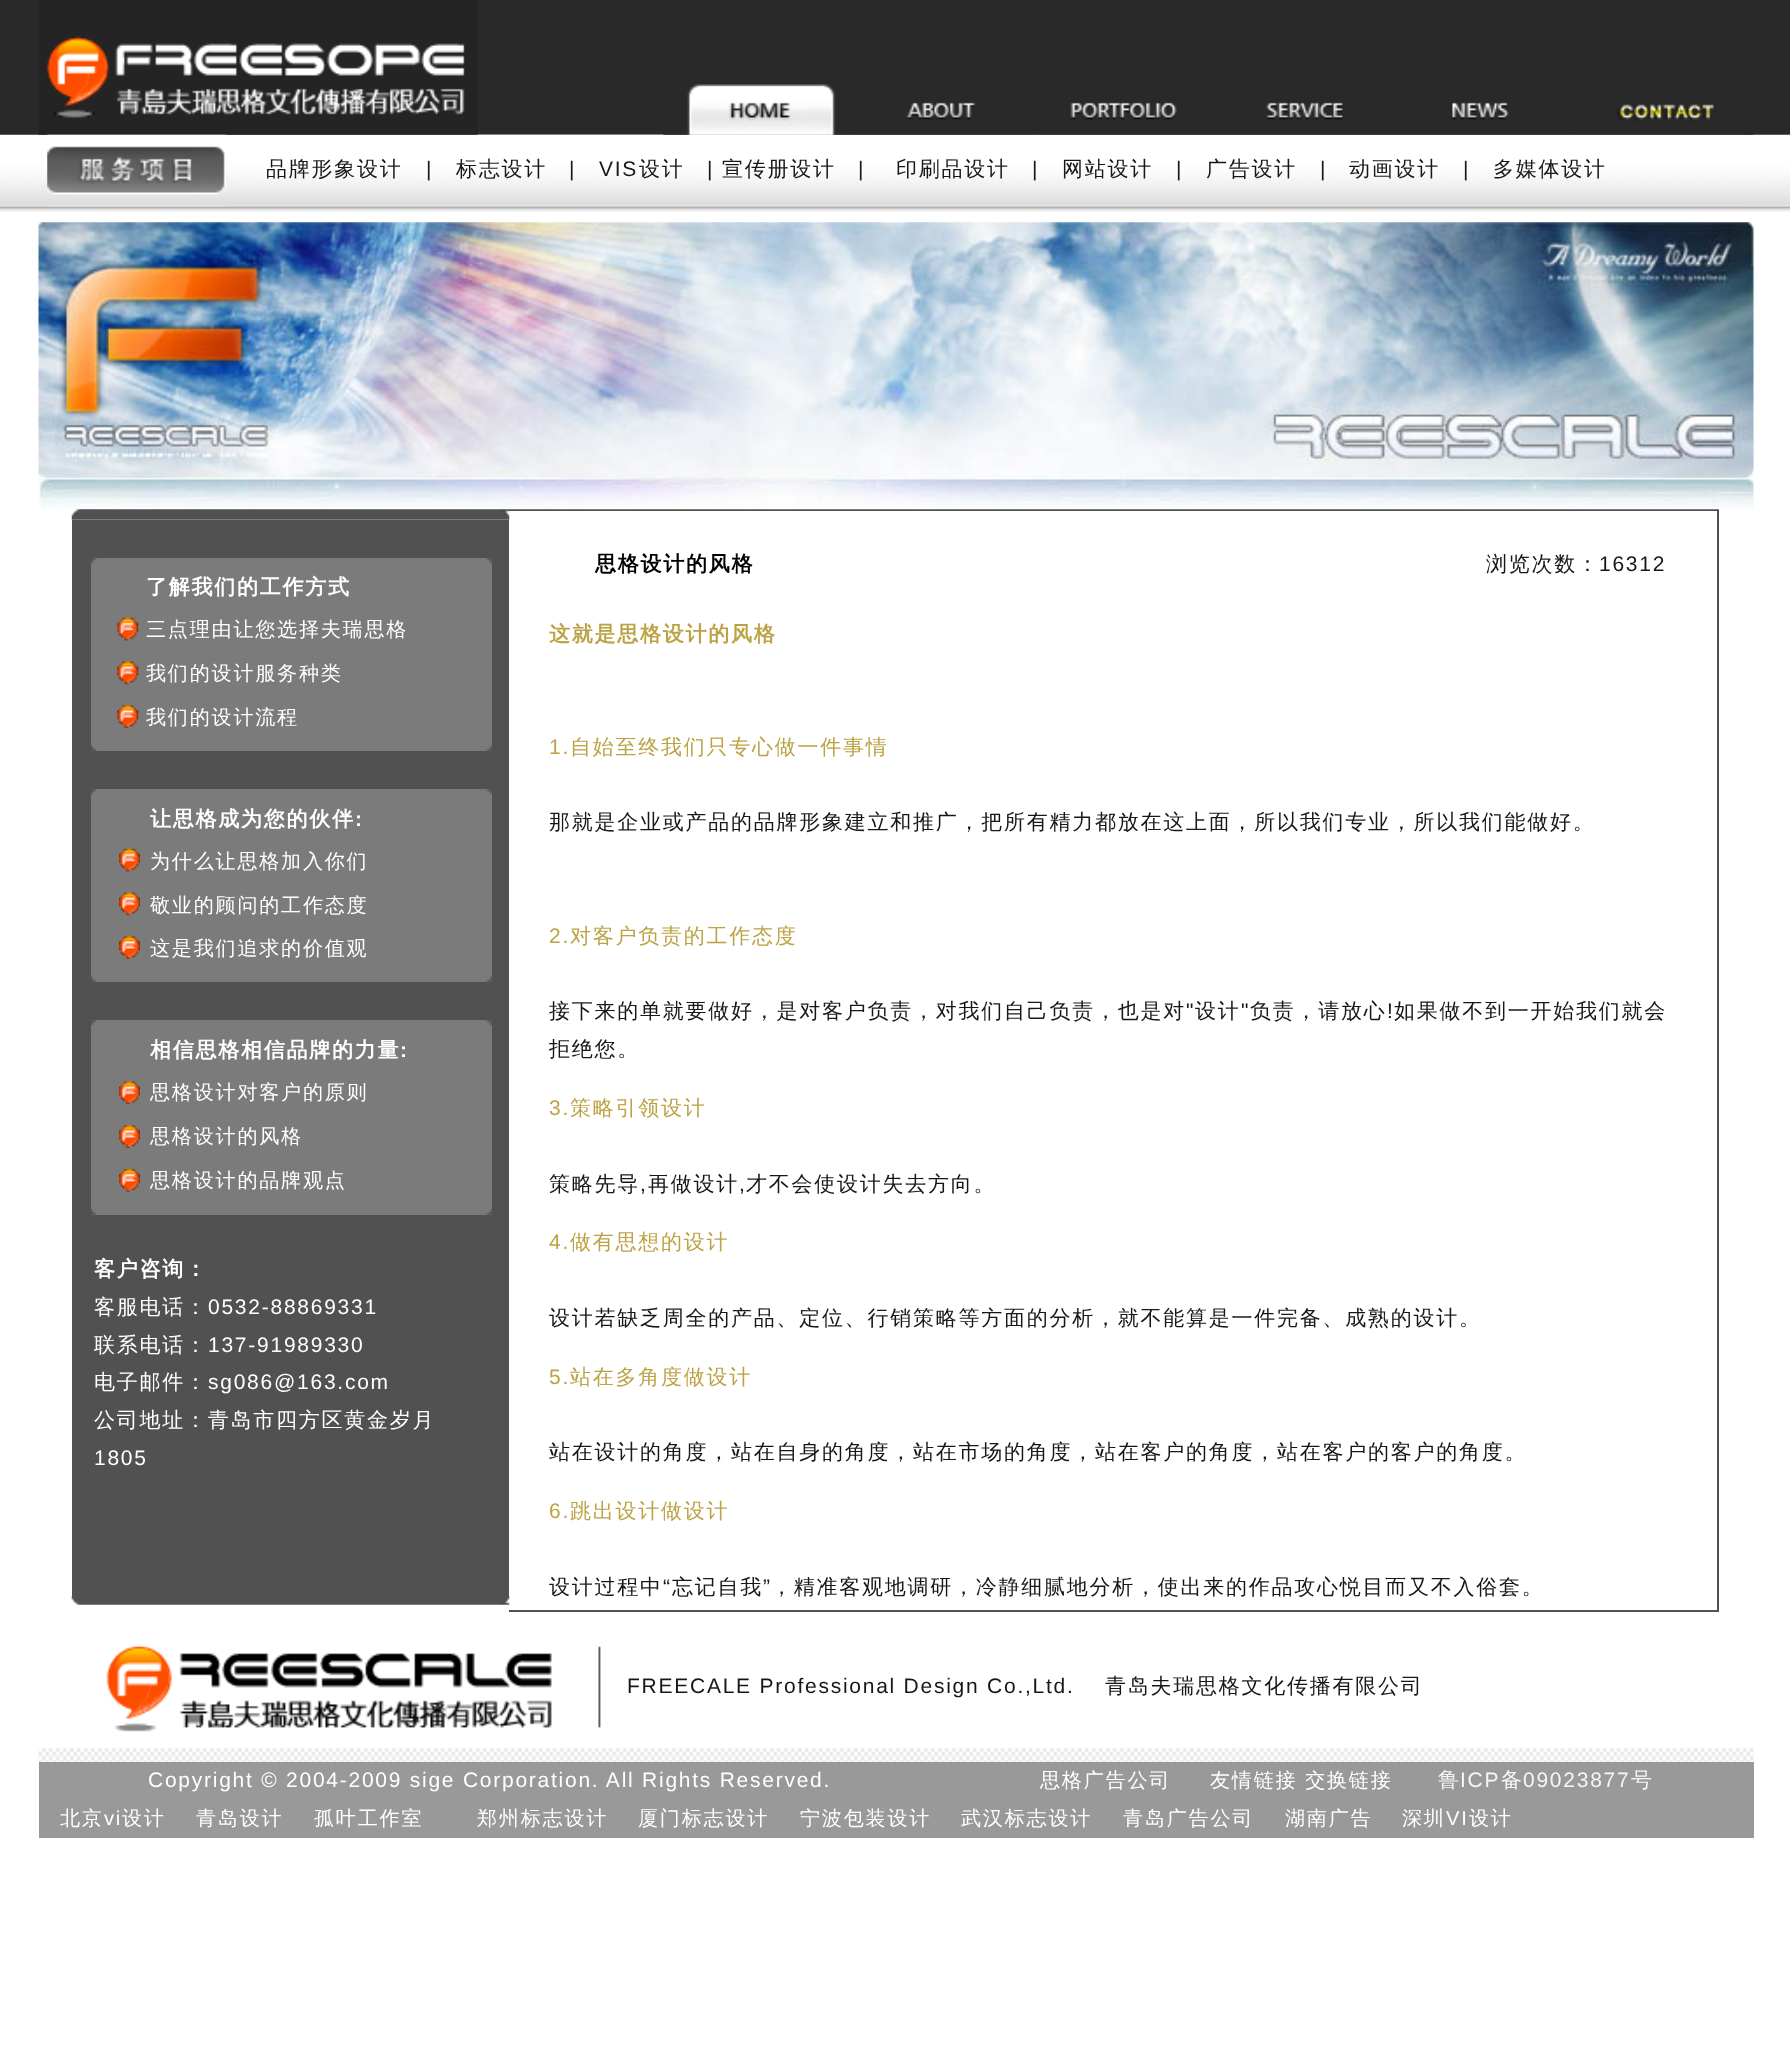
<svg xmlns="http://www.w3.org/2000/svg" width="1790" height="2046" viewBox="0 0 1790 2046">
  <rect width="100%" height="100%" fill="#fff"/>
  <path d="M0 0h1790v135H0z" fill="#292929"/>
  <image x="0" y="134" width="1790" height="73" href="img/8.png"/>
  <image x="47" y="134" width="1698" height="73" href="img/9.png"/>
  <image x="38" y="0" width="440" height="135" href="img/1.png"/>
  <image x="663" y="84" width="190" height="51" href="img/2.png"/>
  <image x="852" y="102" width="181" height="33" href="img/3.png"/>
  <image x="1032" y="102" width="179" height="33" href="img/4.png"/>
  <image x="1211" y="102" width="182" height="33" href="img/5.png"/>
  <image x="1393" y="102" width="181" height="33" href="img/6.png"/>
  <image x="1573" y="104" width="181" height="31" href="img/7.png"/>
  <image x="0" y="206" width="1790" height="6" href="img/11.png"/>
  <image x="47" y="134" width="179" height="73" href="img/10.png"/>
  <path d="M509 509h1210v2H509z" fill="#515151"/>
  <path d="M1717 509h2v1103H1717z" fill="#515151"/>
  <image x="38" y="222" width="1716" height="288" href="img/12.png"/>
  <image x="71" y="509" width="439" height="11" href="img/13.png"/>
  <path d="M72 520h437v1076H72z" fill="#515151"/>
  <path d="M91 558h401v193H91z" fill="#7b7b7b"/>
  <image x="91" y="558" width="401" height="6" href="img/14.png"/>
  <image x="117" y="617" width="22" height="24" href="img/15.png"/>
  <image x="117" y="661" width="22" height="24" href="img/16.png"/>
  <image x="117" y="705" width="22" height="23" href="img/17.png"/>
  <image x="91" y="745" width="401" height="6" href="img/18.png"/>
  <path d="M91 789h401v193H91z" fill="#7b7b7b"/>
  <image x="91" y="789" width="401" height="6" href="img/14.png"/>
  <image x="119" y="848" width="21" height="24" href="img/19.png"/>
  <image x="119" y="892" width="21" height="24" href="img/20.png"/>
  <image x="119" y="936" width="21" height="23" href="img/21.png"/>
  <image x="91" y="976" width="401" height="6" href="img/18.png"/>
  <path d="M91 1020h401v195H91z" fill="#7b7b7b"/>
  <image x="91" y="1020" width="401" height="6" href="img/14.png"/>
  <image x="119" y="1081" width="21" height="24" href="img/20.png"/>
  <image x="119" y="1125" width="21" height="23" href="img/21.png"/>
  <image x="119" y="1169" width="21" height="23" href="img/22.png"/>
  <image x="91" y="1209" width="401" height="6" href="img/23.png"/>
  <image x="71" y="1596" width="439" height="9" href="img/24.png"/>
  <path d="M509 1610h1210v2H509z" fill="#515151"/>
  <image x="106" y="1646" width="495" height="86" href="img/25.png"/>
  <image x="38" y="1748" width="1716" height="15" href="img/26.png"/>
  <path d="M39 1762h1715v76H39z" fill="#999"/>
  <text x="266" y="176" font-family="WenQuanYi Zen Hei" font-size="21" font-weight="500" letter-spacing="1.75" fill="#171717">品牌形象设计</text>
  <text x="426" y="176" font-family="Liberation Sans" font-size="21" letter-spacing="1.75" fill="#171717">|</text>
  <text x="456" y="176" font-family="WenQuanYi Zen Hei" font-size="21" font-weight="500" letter-spacing="1.75" fill="#171717">标志设计</text>
  <g font-family="Liberation Sans" font-size="21" letter-spacing="1.75" fill="#171717">
    <text x="569" y="176">|</text>
    <text x="599" y="176">VIS</text>
  </g>
  <text x="639" y="176" font-family="WenQuanYi Zen Hei" font-size="21" font-weight="500" letter-spacing="1.75" fill="#171717">设计</text>
  <text x="707" y="176" font-family="Liberation Sans" font-size="21" letter-spacing="1.75" fill="#171717">|</text>
  <text x="722" y="176" font-family="WenQuanYi Zen Hei" font-size="21" font-weight="500" letter-spacing="1.75" fill="#171717">宣传册设计</text>
  <text x="858" y="176" font-family="Liberation Sans" font-size="21" letter-spacing="1.75" fill="#171717">|</text>
  <text x="896" y="176" font-family="WenQuanYi Zen Hei" font-size="21" font-weight="500" letter-spacing="1.75" fill="#171717">印刷品设计</text>
  <text x="1032" y="176" font-family="Liberation Sans" font-size="21" letter-spacing="1.75" fill="#171717">|</text>
  <text x="1062" y="176" font-family="WenQuanYi Zen Hei" font-size="21" font-weight="500" letter-spacing="1.75" fill="#171717">网站设计</text>
  <text x="1176" y="176" font-family="Liberation Sans" font-size="21" letter-spacing="1.75" fill="#171717">|</text>
  <text x="1206" y="176" font-family="WenQuanYi Zen Hei" font-size="21" font-weight="500" letter-spacing="1.75" fill="#171717">广告设计</text>
  <text x="1320" y="176" font-family="Liberation Sans" font-size="21" letter-spacing="1.75" fill="#171717">|</text>
  <text x="1349" y="176" font-family="WenQuanYi Zen Hei" font-size="21" font-weight="500" letter-spacing="1.75" fill="#171717">动画设计</text>
  <text x="1463" y="176" font-family="Liberation Sans" font-size="21" letter-spacing="1.75" fill="#171717">|</text>
  <text x="1493" y="176" font-family="WenQuanYi Zen Hei" font-size="21" font-weight="500" letter-spacing="1.75" fill="#171717">多媒体设计</text>
  <text x="146" y="594" font-family="WenQuanYi Zen Hei" font-size="21" font-weight="bold" letter-spacing="1.75" fill="#fff">了解我们的工作方式</text>
  <g font-family="WenQuanYi Zen Hei" font-size="20.1" font-weight="500" letter-spacing="1.75" fill="#fff">
    <text x="146" y="636">三点理由让您选择夫瑞思格</text>
    <text x="146" y="680">我们的设计服务种类</text>
    <text x="146" y="724">我们的设计流程</text>
  </g>
  <text x="150" y="826" font-family="WenQuanYi Zen Hei" font-size="21" font-weight="bold" letter-spacing="1.75" fill="#fff">让思格成为您的伙伴</text>
  <text x="355" y="826" font-family="Liberation Sans" font-size="21" font-weight="bold" letter-spacing="1.75" fill="#fff">:</text>
  <g font-family="WenQuanYi Zen Hei" font-size="20.1" font-weight="500" letter-spacing="1.75" fill="#fff">
    <text x="150" y="868">为什么让思格加入你们</text>
    <text x="150" y="912">敬业的顾问的工作态度</text>
    <text x="150" y="955">这是我们追求的价值观</text>
  </g>
  <text x="150" y="1057" font-family="WenQuanYi Zen Hei" font-size="21" font-weight="bold" letter-spacing="1.75" fill="#fff">相信思格相信品牌的力量</text>
  <text x="400" y="1057" font-family="Liberation Sans" font-size="21" font-weight="bold" letter-spacing="1.75" fill="#fff">:</text>
  <g font-family="WenQuanYi Zen Hei" font-size="20.1" font-weight="500" letter-spacing="1.75" fill="#fff">
    <text x="150" y="1099">思格设计对客户的原则</text>
    <text x="150" y="1143">思格设计的风格</text>
    <text x="150" y="1187">思格设计的品牌观点</text>
  </g>
  <text x="94" y="1276" font-family="WenQuanYi Zen Hei" font-size="21" font-weight="bold" letter-spacing="1.75" fill="#fff">客户咨询：</text>
  <text x="94" y="1314" font-family="WenQuanYi Zen Hei" font-size="21" font-weight="500" letter-spacing="1.75" fill="#fff">客服电话：</text>
  <text x="208" y="1314" font-family="Liberation Sans" font-size="21" letter-spacing="1.75" fill="#fff">0532-88869331</text>
  <text x="94" y="1352" font-family="WenQuanYi Zen Hei" font-size="21" font-weight="500" letter-spacing="1.75" fill="#fff">联系电话：</text>
  <text x="208" y="1352" font-family="Liberation Sans" font-size="21" letter-spacing="1.75" fill="#fff">137-91989330</text>
  <text x="94" y="1389" font-family="WenQuanYi Zen Hei" font-size="21" font-weight="500" letter-spacing="1.75" fill="#fff">电子邮件：</text>
  <text x="208" y="1389" font-family="Liberation Sans" font-size="21" letter-spacing="1.75" fill="#fff">sg086@163.com</text>
  <text x="94" y="1427" font-family="WenQuanYi Zen Hei" font-size="21" font-weight="500" letter-spacing="1.75" fill="#fff">公司地址：青岛市四方区黄金岁月</text>
  <text x="94" y="1465" font-family="Liberation Sans" font-size="21" letter-spacing="1.75" fill="#fff">1805</text>
  <text x="595" y="571" font-family="WenQuanYi Zen Hei" font-size="21" font-weight="bold" letter-spacing="1.75" fill="#000">思格设计的风格</text>
  <text x="1486" y="571" font-family="WenQuanYi Zen Hei" font-size="21" font-weight="500" letter-spacing="1.75" fill="#171717">浏览次数：</text>
  <text x="1599" y="571" font-family="Liberation Sans" font-size="21" letter-spacing="1.75" fill="#171717">16312</text>
  <text x="549" y="641" font-family="WenQuanYi Zen Hei" font-size="21" font-weight="bold" letter-spacing="1.75" fill="#bba344">这就是思格设计的风格</text>
  <text x="549" y="754" font-family="Liberation Sans" font-size="21" letter-spacing="1.75" fill="#bba344">1.</text>
  <text x="570" y="754" font-family="WenQuanYi Zen Hei" font-size="21" font-weight="500" letter-spacing="1.75" fill="#bba344">自始至终我们只专心做一件事情</text>
  <text x="549" y="829" font-family="WenQuanYi Zen Hei" font-size="21" font-weight="500" letter-spacing="1.75" fill="#171717">那就是企业或产品的品牌形象建立和推广，把所有精力都放在这上面，所以我们专业，所以我们能做好。</text>
  <text x="549" y="943" font-family="Liberation Sans" font-size="21" letter-spacing="1.75" fill="#bba344">2.</text>
  <text x="570" y="943" font-family="WenQuanYi Zen Hei" font-size="21" font-weight="500" letter-spacing="1.75" fill="#bba344">对客户负责的工作态度</text>
  <text x="549" y="1018" font-family="WenQuanYi Zen Hei" font-size="21" font-weight="500" letter-spacing="1.75" fill="#171717">接下来的单就要做好，是对客户负责，对我们自己负责，也是对</text>
  <text x="1186" y="1018" font-family="Liberation Sans" font-size="21" letter-spacing="1.75" fill="#171717">"</text>
  <text x="1195" y="1018" font-family="WenQuanYi Zen Hei" font-size="21" font-weight="500" letter-spacing="1.75" fill="#171717">设计</text>
  <text x="1241" y="1018" font-family="Liberation Sans" font-size="21" letter-spacing="1.75" fill="#171717">"</text>
  <text x="1250" y="1018" font-family="WenQuanYi Zen Hei" font-size="21" font-weight="500" letter-spacing="1.75" fill="#171717">负责，请放心</text>
  <text x="1387" y="1018" font-family="Liberation Sans" font-size="21" letter-spacing="1.75" fill="#171717">!</text>
  <g font-family="WenQuanYi Zen Hei" font-size="21" font-weight="500" letter-spacing="1.75" fill="#171717">
    <text x="1394" y="1018">如果做不到一开始我们就会</text>
    <text x="549" y="1056">拒绝您。</text>
  </g>
  <text x="549" y="1115" font-family="Liberation Sans" font-size="21" letter-spacing="1.75" fill="#bba344">3.</text>
  <text x="570" y="1115" font-family="WenQuanYi Zen Hei" font-size="21" font-weight="500" letter-spacing="1.75" fill="#bba344">策略引领设计</text>
  <text x="549" y="1191" font-family="WenQuanYi Zen Hei" font-size="21" font-weight="500" letter-spacing="1.75" fill="#171717">策略先导</text>
  <text x="640" y="1191" font-family="Liberation Sans" font-size="21" letter-spacing="1.75" fill="#171717">,</text>
  <text x="648" y="1191" font-family="WenQuanYi Zen Hei" font-size="21" font-weight="500" letter-spacing="1.75" fill="#171717">再做设计</text>
  <text x="739" y="1191" font-family="Liberation Sans" font-size="21" letter-spacing="1.75" fill="#171717">,</text>
  <text x="746" y="1191" font-family="WenQuanYi Zen Hei" font-size="21" font-weight="500" letter-spacing="1.75" fill="#171717">才不会使设计失去方向。</text>
  <text x="549" y="1249" font-family="Liberation Sans" font-size="21" letter-spacing="1.75" fill="#bba344">4.</text>
  <text x="570" y="1249" font-family="WenQuanYi Zen Hei" font-size="21" font-weight="500" letter-spacing="1.75" fill="#bba344">做有思想的设计</text>
  <text x="549" y="1325" font-family="WenQuanYi Zen Hei" font-size="21" font-weight="500" letter-spacing="1.75" fill="#171717">设计若缺乏周全的产品、定位、行销策略等方面的分析，就不能算是一件完备、成熟的设计。</text>
  <text x="549" y="1384" font-family="Liberation Sans" font-size="21" letter-spacing="1.75" fill="#bba344">5.</text>
  <text x="570" y="1384" font-family="WenQuanYi Zen Hei" font-size="21" font-weight="500" letter-spacing="1.75" fill="#bba344">站在多角度做设计</text>
  <text x="549" y="1459" font-family="WenQuanYi Zen Hei" font-size="21" font-weight="500" letter-spacing="1.75" fill="#171717">站在设计的角度，站在自身的角度，站在市场的角度，站在客户的角度，站在客户的客户的角度。</text>
  <text x="549" y="1518" font-family="Liberation Sans" font-size="21" letter-spacing="1.75" fill="#bba344">6.</text>
  <text x="570" y="1518" font-family="WenQuanYi Zen Hei" font-size="21" font-weight="500" letter-spacing="1.75" fill="#bba344">跳出设计做设计</text>
  <text x="549" y="1594" font-family="WenQuanYi Zen Hei" font-size="21" font-weight="500" letter-spacing="1.75" fill="#171717">设计过程中</text>
  <text x="663" y="1594" font-family="Liberation Sans" font-size="21" letter-spacing="1.75" fill="#171717">“</text>
  <text x="672" y="1594" font-family="WenQuanYi Zen Hei" font-size="21" font-weight="500" letter-spacing="1.75" fill="#171717">忘记自我</text>
  <text x="763" y="1594" font-family="Liberation Sans" font-size="21" letter-spacing="1.75" fill="#171717">”</text>
  <text x="771" y="1594" font-family="WenQuanYi Zen Hei" font-size="21" font-weight="500" letter-spacing="1.75" fill="#171717">，精准客观地调研，冷静细腻地分析，使出来的作品攻心悦目而又不入俗套。</text>
  <text x="627" y="1693" font-family="Liberation Sans" font-size="21" letter-spacing="1.75" fill="#171717">FREECALE Professional Design Co.,Ltd.</text>
  <text x="1105" y="1693" font-family="WenQuanYi Zen Hei" font-size="21" font-weight="500" letter-spacing="1.75" fill="#171717">青岛夫瑞思格文化传播有限公司</text>
  <text x="148" y="1787" font-family="Liberation Sans" font-size="21" letter-spacing="1.75" fill="#fff">Copyright © 2004-2009 sige Corporation. All Rights Reserved.</text>
  <g font-family="WenQuanYi Zen Hei" font-size="20.1" font-weight="500" letter-spacing="1.75" fill="#fff">
    <text x="1040" y="1787">思格广告公司</text>
    <text x="1210" y="1787">友情链接 交换链接</text>
  </g>
  <text x="1438" y="1787" font-family="WenQuanYi Zen Hei" font-size="21" font-weight="500" letter-spacing="1.75" fill="#f6f6f6">鲁</text>
  <text x="1460" y="1787" font-family="Liberation Sans" font-size="21" letter-spacing="1.75" fill="#f6f6f6">ICP</text>
  <text x="1501" y="1787" font-family="WenQuanYi Zen Hei" font-size="21" font-weight="500" letter-spacing="1.75" fill="#f6f6f6">备</text>
  <text x="1523" y="1787" font-family="Liberation Sans" font-size="21" letter-spacing="1.75" fill="#f6f6f6">09023877</text>
  <text x="1631" y="1787" font-family="WenQuanYi Zen Hei" font-size="21" font-weight="500" letter-spacing="1.75" fill="#f6f6f6">号</text>
  <text x="60" y="1825" font-family="WenQuanYi Zen Hei" font-size="20.1" font-weight="500" letter-spacing="1.75" fill="#fff">北京</text>
  <text x="104" y="1825" font-family="Liberation Sans" font-size="20.1" letter-spacing="1.75" fill="#fff">vi</text>
  <g font-family="WenQuanYi Zen Hei" font-size="20.1" font-weight="500" letter-spacing="1.75" fill="#fff">
    <text x="122" y="1825">设计</text>
    <text x="196" y="1825">青岛设计</text>
    <text x="314" y="1825">孤叶工作室</text>
    <text x="477" y="1825">郑州标志设计</text>
    <text x="638" y="1825">厦门标志设计</text>
    <text x="800" y="1825">宁波包装设计</text>
    <text x="961" y="1825">武汉标志设计</text>
    <text x="1123" y="1825">青岛广告公司</text>
    <text x="1285" y="1825">湖南广告</text>
    <text x="1402" y="1825">深圳</text>
  </g>
  <text x="1446" y="1825" font-family="Liberation Sans" font-size="20.1" letter-spacing="1.75" fill="#fff">VI</text>
  <text x="1469" y="1825" font-family="WenQuanYi Zen Hei" font-size="20.1" font-weight="500" letter-spacing="1.75" fill="#fff">设计</text>
</svg>
